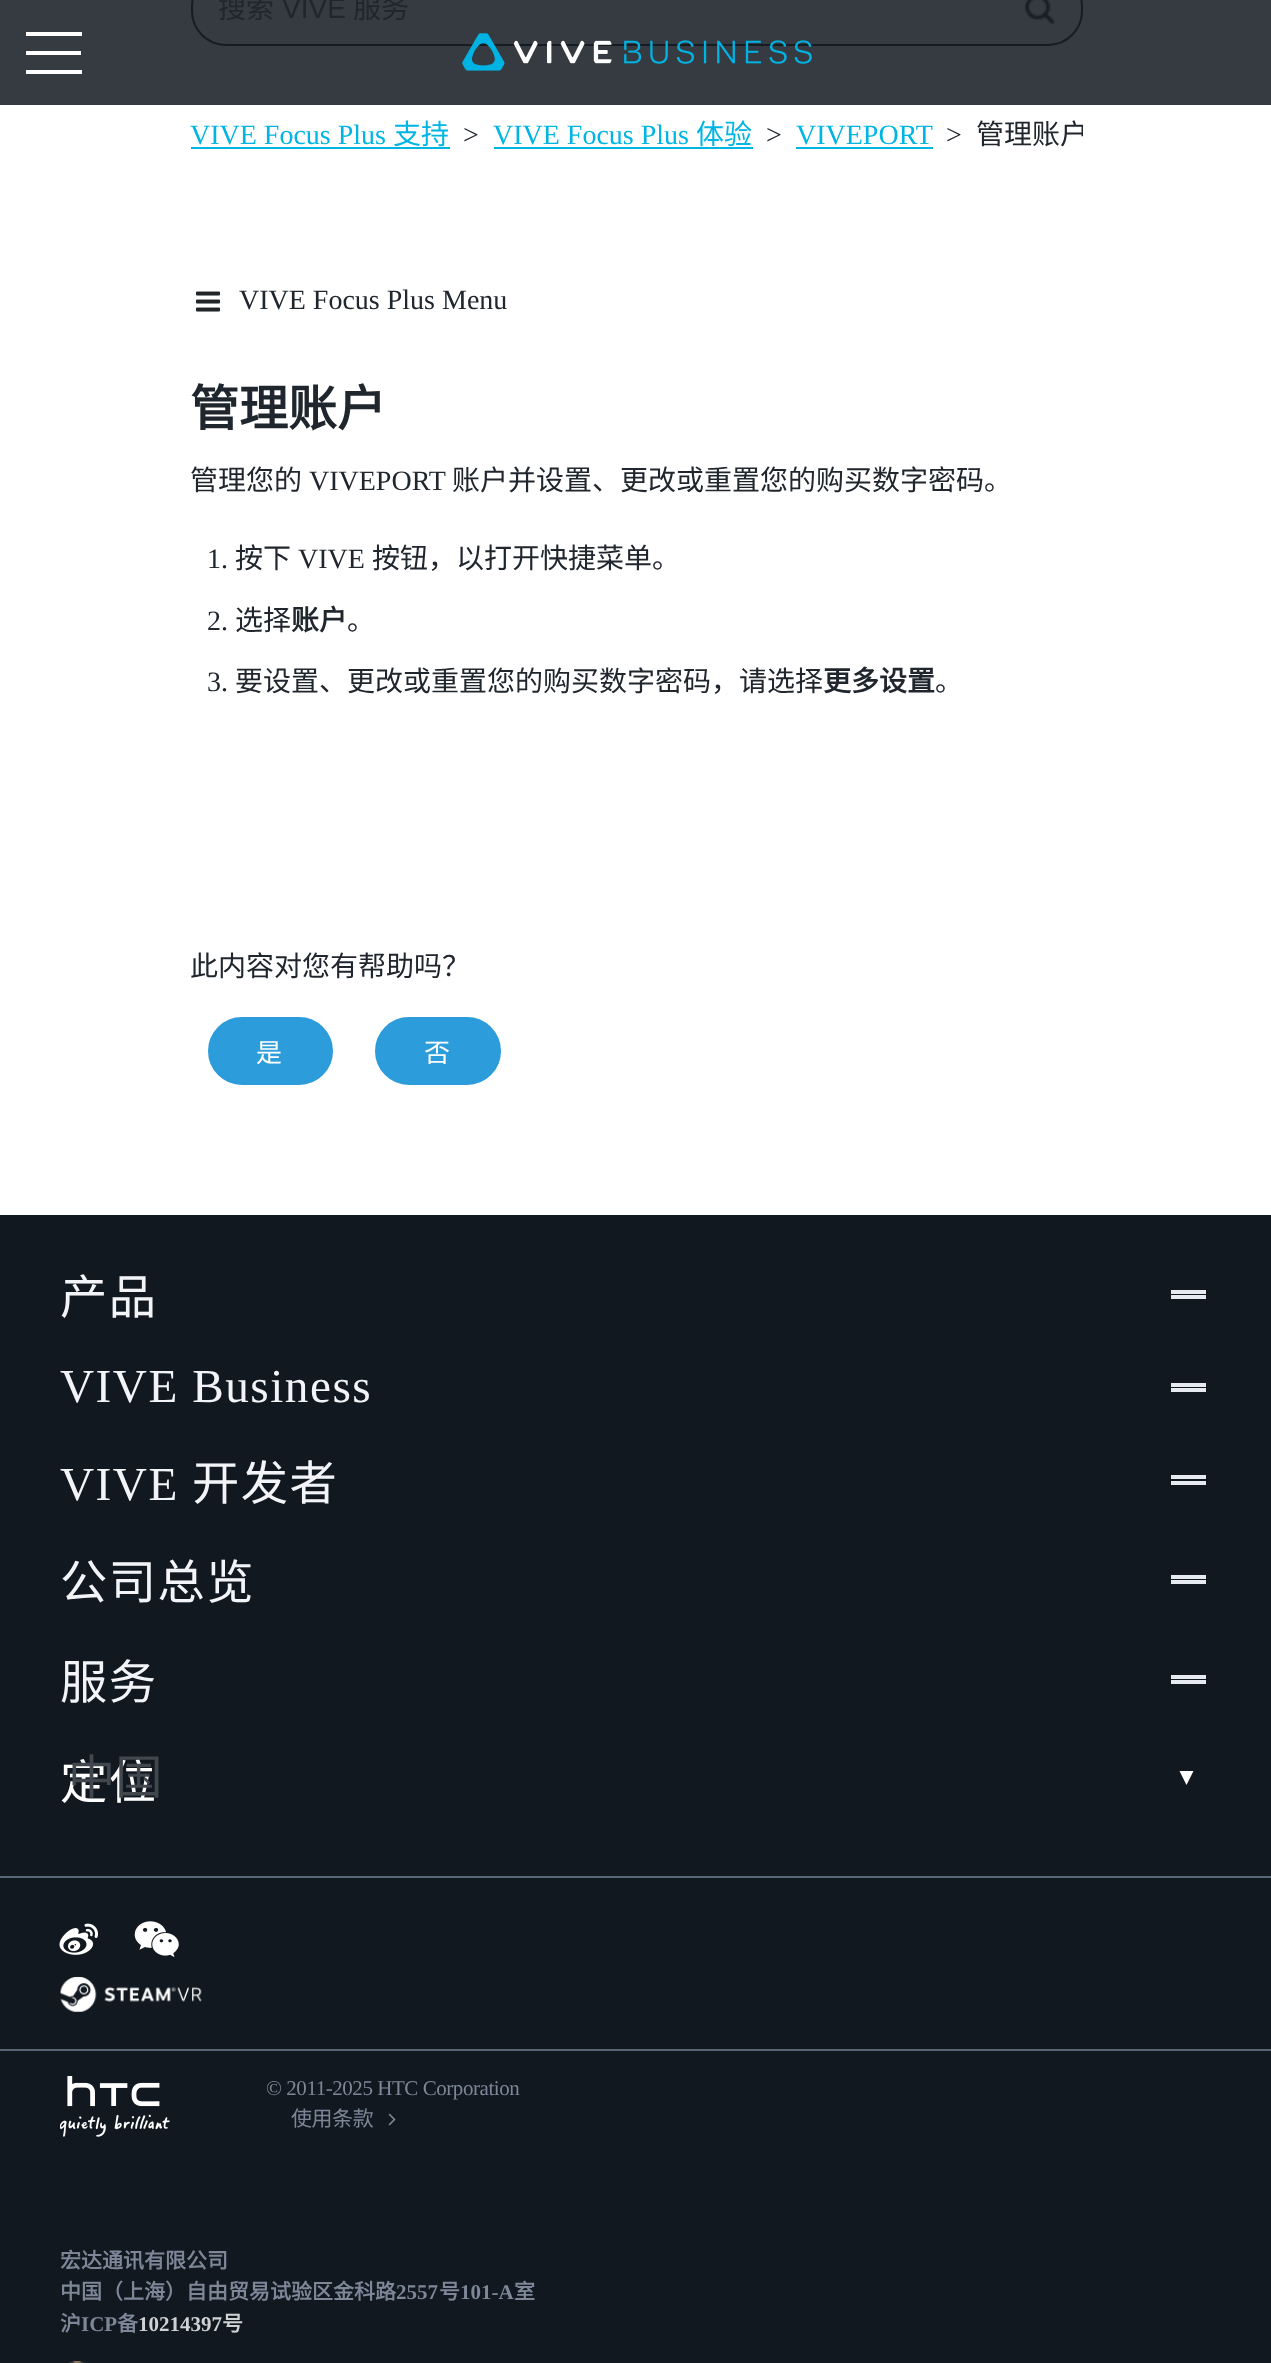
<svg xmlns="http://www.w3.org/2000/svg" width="1271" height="2363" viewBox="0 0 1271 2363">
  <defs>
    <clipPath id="clip1"><path d="M191 116h892v42H191z"/></clipPath>
  </defs>
  <rect width="100%" height="100%" fill="#fff"/>
  <path d="M0 0h1271v105H0z" fill="#353b41"/>
  <rect x="192" y="-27" width="890" height="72" rx="34" fill="none" stroke="#161c23" stroke-width="2"/>
  <image x="1024" y="0" width="32" height="25" href="img/1.png"/>
  <path d="M191 147h259v2H191z" fill="#00b5e2"/>
  <path d="M494 147h259v2H494z" fill="#00b5e2"/>
  <path d="M796 147h137v2H796z" fill="#00b5e2"/>
  <image x="196" y="291" width="24" height="21" href="img/2.png"/>
  <rect x="209" y="1018" width="123" height="66" rx="33" fill="#2c9cdb" stroke="#2c9cdb" stroke-width="2"/>
  <rect x="376" y="1018" width="124" height="66" rx="33" fill="#2c9cdb" stroke="#2c9cdb" stroke-width="2"/>
  <path d="M26 51h55v4H26z" fill="#fff"/>
  <path d="M26 32h56v4H26z" fill="#fff"/>
  <path d="M26 70h56v4H26z" fill="#fff"/>
  <image x="462" y="33" width="350" height="38" href="img/3.png"/>
  <path d="M0 1215h1271v1148H0z" fill="#111820"/>
  <path d="M1171 1290h35v4H1171z" fill="#e7eaf0"/>
  <path d="M1171 1295h35v4H1171z" fill="#e7eaf0"/>
  <path d="M1171 1383h35v4H1171z" fill="#e7eaf0"/>
  <path d="M1171 1388h35v4H1171z" fill="#e7eaf0"/>
  <path d="M1171 1475h35v4H1171z" fill="#e7eaf0"/>
  <path d="M1171 1481h35v4H1171z" fill="#e7eaf0"/>
  <path d="M1171 1575h35v4H1171z" fill="#e7eaf0"/>
  <path d="M1171 1580h35v4H1171z" fill="#e7eaf0"/>
  <path d="M1171 1675h35v4H1171z" fill="#e7eaf0"/>
  <path d="M1171 1680h35v4H1171z" fill="#e7eaf0"/>
  <path d="M0 2049h1271v2H0z" fill="#596677"/>
  <path d="M0 1876h1271v2H0z" fill="#596677"/>
  <path d="M1179.5 1771H1193.5L1186.5 1785Z" fill="#fff"/>
  <image x="59" y="1923" width="39" height="32" href="img/4.png"/>
  <image x="134" y="1921" width="45" height="36" href="img/5.png"/>
  <image x="60" y="1976" width="142" height="37" href="img/6.png"/>
  <image x="60" y="2076" width="110" height="61" href="img/7.png"/>
  <image x="388" y="2113" width="8" height="13" href="img/8.png"/>
  <image x="68" y="2361" width="18" height="2" href="img/9.png"/>
  <text x="218" y="18" font-family="Noto Sans CJK SC" font-size="28" fill="#20262d">搜索</text>
  <text x="282" y="18" font-family="Liberation Sans" font-size="28" fill="#20262d">VIVE</text>
  <text x="353" y="18" font-family="Noto Sans CJK SC" font-size="28" fill="#20262d">服务</text>
  <text x="190" y="144" font-family="Liberation Serif" font-size="28" fill="#00b5e2">VIVE Focus Plus</text>
  <text x="393" y="144" font-family="Noto Sans CJK SC" font-size="28" fill="#00b5e2">支持</text>
  <text x="463" y="144" font-family="Liberation Serif" font-size="28" fill="#20262d">&gt;</text>
  <text x="493" y="144" font-family="Liberation Serif" font-size="28" fill="#00b5e2">VIVE Focus Plus</text>
  <text x="696" y="144" font-family="Noto Sans CJK SC" font-size="28" fill="#00b5e2">体验</text>
  <text x="766" y="144" font-family="Liberation Serif" font-size="28" fill="#20262d">&gt;</text>
  <text x="796" y="144" font-family="Liberation Serif" font-size="28" fill="#00b5e2">VIVEPORT</text>
  <text x="946" y="144" font-family="Liberation Serif" font-size="28" fill="#20262d">&gt;</text>
  <g clip-path="url(#clip1)">
    <text x="976" y="144" font-family="Noto Sans CJK SC" font-size="28" fill="#20262d">管理账户</text>
  </g>
  <text x="239" y="309" font-family="Liberation Serif" font-size="28" fill="#20262d">VIVE Focus Plus Menu</text>
  <text x="190" y="426" font-family="Noto Sans CJK SC" font-size="49" font-weight="bold" fill="#20262d">管理账户</text>
  <text x="190" y="490" font-family="Noto Sans CJK SC" font-size="28" fill="#20262d">管理您的</text>
  <text x="309" y="490" font-family="Liberation Serif" font-size="28" fill="#20262d">VIVEPORT</text>
  <text x="452" y="490" font-family="Noto Sans CJK SC" font-size="28" fill="#20262d">账户并设置、更改或重置您的购买数字密码。</text>
  <text x="207" y="568" font-family="Liberation Serif" font-size="28" fill="#20262d">1.</text>
  <text x="235" y="568" font-family="Noto Sans CJK SC" font-size="28" fill="#20262d">按下</text>
  <text x="298" y="568" font-family="Liberation Serif" font-size="28" fill="#20262d">VIVE</text>
  <text x="372" y="568" font-family="Noto Sans CJK SC" font-size="28" fill="#20262d">按钮，以打开快捷菜单。</text>
  <text x="207" y="630" font-family="Liberation Serif" font-size="28" fill="#20262d">2.</text>
  <text x="235" y="630" font-family="Noto Sans CJK SC" font-size="28" fill="#20262d">选择</text>
  <text x="291" y="630" font-family="Noto Sans CJK SC" font-size="28" font-weight="bold" fill="#20262d">账户</text>
  <text x="347" y="630" font-family="Noto Sans CJK SC" font-size="28" fill="#20262d">。</text>
  <text x="207" y="691" font-family="Liberation Serif" font-size="28" fill="#20262d">3.</text>
  <text x="235" y="691" font-family="Noto Sans CJK SC" font-size="28" fill="#20262d">要设置、更改或重置您的购买数字密码，请选择</text>
  <text x="823" y="691" font-family="Noto Sans CJK SC" font-size="28" font-weight="bold" fill="#20262d">更多设置</text>
  <g font-family="Noto Sans CJK SC" font-size="28" fill="#20262d">
    <text x="935" y="691">。</text>
    <text x="190" y="976">此内容对您有帮助吗？</text>
  </g>
  <g font-family="Noto Sans CJK SC" font-size="26" letter-spacing="1" fill="#fff">
    <text x="256" y="1062">是</text>
    <text x="424" y="1062">否</text>
  </g>
  <text x="60" y="1314" font-family="Noto Sans CJK SC" font-size="47.25" letter-spacing="1.5" fill="#f2f4f8">产品</text>
  <g font-family="Liberation Serif" font-size="47.25" letter-spacing="1.5" fill="#f2f4f8">
    <text x="60" y="1402">VIVE Business</text>
    <text x="60" y="1500">VIVE</text>
  </g>
  <g font-family="Noto Sans CJK SC" font-size="47.25" letter-spacing="1.5" fill="#f2f4f8">
    <text x="192" y="1500">开发者</text>
    <text x="60" y="1599">公司总览</text>
    <text x="60" y="1699">服务</text>
  </g>
  <text x="60" y="1799" font-family="Noto Sans CJK SC" font-size="47.25" letter-spacing="1.5" fill="#fff">定位</text>
  <text x="68" y="1794" font-family="Noto Sans CJK SC" font-size="47.25" fill="#41474d">中国</text>
  <text x="266" y="2095" font-family="Liberation Serif" font-size="21" letter-spacing="-0.45" fill="#7d8797">© 2011-2025 HTC Corporation</text>
  <text x="291" y="2126" font-family="Noto Sans CJK SC" font-size="21" letter-spacing="-0.45" fill="#7d8797">使用条款</text>
  <g font-family="Noto Sans CJK SC" font-size="21" font-weight="bold" fill="#7d8797">
    <text x="60" y="2268">宏达通讯有限公司</text>
    <text x="60" y="2299">中国（上海）自由贸易试验区金科路</text>
  </g>
  <text x="396" y="2299" font-family="Liberation Serif" font-size="21" font-weight="bold" fill="#7d8797">2557</text>
  <text x="439" y="2299" font-family="Noto Sans CJK SC" font-size="21" font-weight="bold" fill="#7d8797">号</text>
  <text x="460" y="2299" font-family="Liberation Serif" font-size="21" font-weight="bold" fill="#7d8797">101-A</text>
  <g font-family="Noto Sans CJK SC" font-size="21" font-weight="bold" fill="#7d8797">
    <text x="514" y="2299">室</text>
    <text x="60" y="2331">沪</text>
  </g>
  <text x="81" y="2331" font-family="Liberation Serif" font-size="21" font-weight="bold" fill="#7d8797">ICP</text>
  <text x="117" y="2331" font-family="Noto Sans CJK SC" font-size="21" font-weight="bold" fill="#7d8797">备</text>
  <text x="138" y="2331" font-family="Liberation Serif" font-size="21" font-weight="bold" fill="#cfd1d2">10214397</text>
  <text x="222" y="2331" font-family="Noto Sans CJK SC" font-size="21" font-weight="bold" fill="#cfd1d2">号</text>
</svg>
